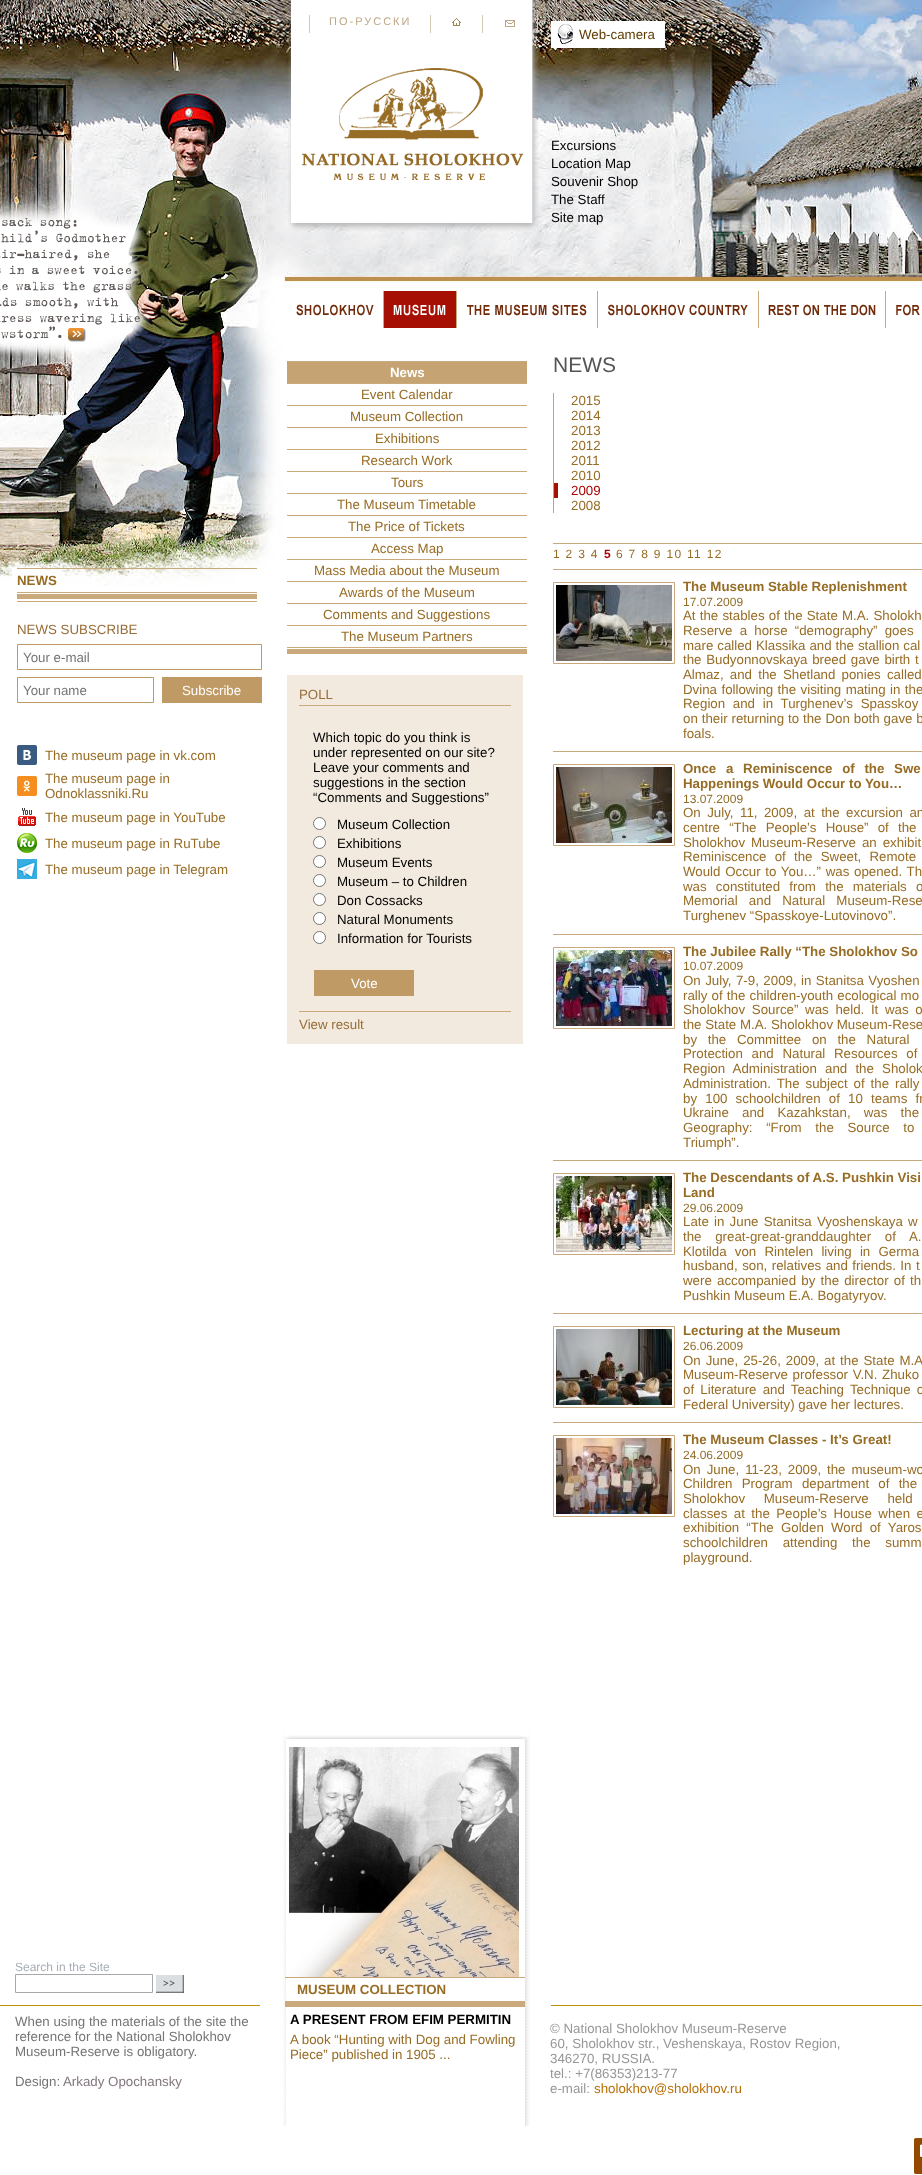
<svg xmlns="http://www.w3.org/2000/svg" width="922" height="2175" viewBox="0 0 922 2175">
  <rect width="100%" height="100%" fill="#fff"/>
  <image x="0" y="0" width="922" height="586" href="img/1.png"/>
  <image x="288" y="0" width="251" height="231" href="img/2.png"/>
  <path d="M430 15h1v18H430z" fill="#d6c9b3"/>
  <path d="M309 15h1v18H309z" fill="#d6c9b3"/>
  <image x="452" y="18" width="9" height="8" href="img/3.png"/>
  <path d="M537 15h1v18H537z" fill="#d6c9b3"/>
  <path d="M482 15h1v18H482z" fill="#d6c9b3"/>
  <image x="505" y="20" width="10" height="7" href="img/4.png"/>
  <image x="302" y="68" width="222" height="112" href="img/5.png"/>
  <path d="M551 21h114v27H551z" fill="#fff"/>
  <image x="557" y="24" width="16" height="20" href="img/6.png"/>
  <image x="0" y="167" width="154" height="209" href="img/7.png"/>
  <path d="M287 277h635v4H287z" fill="#be904e"/>
  <path d="M383 291h1v37H383z" fill="#caaa7d"/>
  <image x="296" y="304" width="78" height="12" href="img/8.png"/>
  <path d="M384 291h72v37H384z" fill="#a50f04"/>
  <path d="M456 291h1v37H456z" fill="#caaa7d"/>
  <image x="393" y="304" width="53" height="12" href="img/9.png"/>
  <path d="M597 291h1v37H597z" fill="#caaa7d"/>
  <image x="467" y="304" width="120" height="12" href="img/10.png"/>
  <path d="M758 291h1v37H758z" fill="#caaa7d"/>
  <image x="608" y="304" width="140" height="12" href="img/11.png"/>
  <path d="M885 291h1v37H885z" fill="#caaa7d"/>
  <image x="768" y="304" width="108" height="12" href="img/12.png"/>
  <image x="896" y="304" width="24" height="12" href="img/13.png"/>
  <path d="M17 601h240v1H17z" fill="#caaa7d"/>
  <path d="M17 568h240v1H17z" fill="#caaa7d"/>
  <path d="M17 592h240v1H17z" fill="#caaa7d"/>
  <path d="M17 594h240v5H17z" fill="#caaa7d"/>
  <path d="M17.5 644.5h244v25H17.5z" fill="none" stroke="#c09a65"/>
  <path d="M17.5 677.5h136v25H17.5z" fill="none" stroke="#c09a65"/>
  <path d="M162 677h100v26H162z" fill="#c09a65"/>
  <image x="17" y="745" width="20" height="20" href="img/14.png"/>
  <image x="17" y="776" width="20" height="20" href="img/15.png"/>
  <image x="18" y="808" width="18" height="18" href="img/16.png"/>
  <image x="17" y="833" width="20" height="20" href="img/17.png"/>
  <image x="17" y="859" width="20" height="20" href="img/18.png"/>
  <path d="M287 361h240v1H287z" fill="#caaa7d"/>
  <path d="M287 649h240v5H287z" fill="#caaa7d"/>
  <path d="M287 362h240v21H287z" fill="#c5a372"/>
  <path d="M287 383h240v1H287z" fill="#caaa7d"/>
  <path d="M287 405h240v1H287z" fill="#caaa7d"/>
  <path d="M287 427h240v1H287z" fill="#caaa7d"/>
  <path d="M287 449h240v1H287z" fill="#caaa7d"/>
  <path d="M287 471h240v1H287z" fill="#caaa7d"/>
  <path d="M287 493h240v1H287z" fill="#caaa7d"/>
  <path d="M287 515h240v1H287z" fill="#caaa7d"/>
  <path d="M287 537h240v1H287z" fill="#caaa7d"/>
  <path d="M287 559h240v1H287z" fill="#caaa7d"/>
  <path d="M287 581h240v1H287z" fill="#caaa7d"/>
  <path d="M287 603h240v1H287z" fill="#caaa7d"/>
  <path d="M287 625h240v1H287z" fill="#caaa7d"/>
  <path d="M287 647h240v1H287z" fill="#caaa7d"/>
  <path d="M287 675h236v369H287z" fill="#f2eade"/>
  <path d="M299 705h212v1H299z" fill="#caaa7d"/>
  <circle cx="319.5" cy="823.5" r="6" fill="#fff" stroke="#767676"/>
  <circle cx="319.5" cy="842.5" r="6" fill="#fff" stroke="#767676"/>
  <circle cx="319.5" cy="861.5" r="6" fill="#fff" stroke="#767676"/>
  <circle cx="319.5" cy="880.5" r="6" fill="#fff" stroke="#767676"/>
  <circle cx="319.5" cy="899.5" r="6" fill="#fff" stroke="#767676"/>
  <circle cx="319.5" cy="918.5" r="6" fill="#fff" stroke="#767676"/>
  <circle cx="319.5" cy="937.5" r="6" fill="#fff" stroke="#767676"/>
  <path d="M314 970h100v26H314z" fill="#c09a65"/>
  <path d="M299 1011h212v1H299z" fill="#caaa7d"/>
  <path d="M553 393h1v120H553z" fill="#c5a372"/>
  <path d="M554 483h4v15H554z" fill="#a50f04"/>
  <path d="M553 543h369v1H553z" fill="#c9a87d"/>
  <path d="M553 569h369v1H553z" fill="#c9a87d"/>
  <path d="M553.5 582.5h121v81H553.5z" fill="none" stroke="#c9a87d"/>
  <image x="556" y="585" width="116" height="76" href="img/19.png"/>
  <path d="M553 751h369v1H553z" fill="#c9a87d"/>
  <path d="M553.5 764.5h121v81H553.5z" fill="none" stroke="#c9a87d"/>
  <image x="556" y="767" width="116" height="76" href="img/20.png"/>
  <path d="M553 934h369v1H553z" fill="#c9a87d"/>
  <path d="M553.5 947.5h121v81H553.5z" fill="none" stroke="#c9a87d"/>
  <image x="556" y="950" width="116" height="76" href="img/21.png"/>
  <path d="M553 1160h369v1H553z" fill="#c9a87d"/>
  <path d="M553.5 1173.5h121v81H553.5z" fill="none" stroke="#c9a87d"/>
  <image x="556" y="1176" width="116" height="76" href="img/22.png"/>
  <path d="M553 1313h369v1H553z" fill="#c9a87d"/>
  <path d="M553.5 1326.5h121v81H553.5z" fill="none" stroke="#c9a87d"/>
  <image x="556" y="1329" width="116" height="76" href="img/23.png"/>
  <path d="M553 1422h369v1H553z" fill="#c9a87d"/>
  <path d="M553.5 1435.5h121v81H553.5z" fill="none" stroke="#c9a87d"/>
  <image x="556" y="1438" width="116" height="76" href="img/24.png"/>
  <path d="M0 2005h922v1H0z" fill="#c09110"/>
  <path d="M15.5 1974.5h137v18H15.5z" fill="none" stroke="#a8a8a8"/>
  <image x="156" y="1975" width="28" height="18" href="img/25.png"/>
  <path d="M260 2005h20v1H260z" fill="#fff"/>
  <image x="280" y="1731" width="251" height="395" href="img/26.png"/>
  <image x="284" y="1731" width="245" height="10" href="img/27.png"/>
  <image x="289" y="1747" width="230" height="230" href="img/28.png"/>
  <path d="M285 1977h240v1H285z" fill="#caaa7d"/>
  <path d="M285 2001h240v6H285z" fill="#caaa7d"/>
  <path d="M531 2005h20v1H531z" fill="#fff"/>
  <image x="914" y="2138" width="8" height="36" href="img/29.png"/>
  <text x="329" y="25" font-family="Liberation Sans" font-size="11" letter-spacing="2" fill="#bea885">ПО-РУССКИ</text>
  <text x="579" y="39" font-family="Liberation Sans" font-size="13.3" fill="#5d3b03">Web-camera</text>
  <g font-family="Liberation Sans" font-size="13.3" fill="#000">
    <text x="551" y="150">Excursions</text>
    <text x="551" y="168">Location Map</text>
    <text x="551" y="186">Souvenir Shop</text>
    <text x="551" y="204">The Staff</text>
    <text x="551" y="222">Site map</text>
  </g>
  <text x="17" y="585" font-family="Liberation Sans" font-size="13.3" font-weight="bold" fill="#976c25">NEWS</text>
  <text x="17" y="634" font-family="Liberation Sans" font-size="13.3" fill="#996d39">NEWS SUBSCRIBE</text>
  <g font-family="Liberation Sans" font-size="13.3" fill="#757575">
    <text x="23" y="662">Your e-mail</text>
    <text x="23" y="695">Your name</text>
  </g>
  <text x="182" y="695" font-family="Liberation Sans" font-size="13.3" fill="#fff">Subscribe</text>
  <g font-family="Liberation Sans" font-size="13.3" fill="#976c25">
    <text x="45" y="760">The museum page in vk.com</text>
    <text x="45" y="783">The museum page in</text>
    <text x="45" y="798">Odnoklassniki.Ru</text>
    <text x="45" y="822">The museum page in YouTube</text>
    <text x="45" y="848">The museum page in RuTube</text>
    <text x="45" y="874">The museum page in Telegram</text>
  </g>
  <text x="390" y="377" font-family="Liberation Sans" font-size="13.3" font-weight="bold" fill="#fff">News</text>
  <g font-family="Liberation Sans" font-size="13.3" fill="#976c25">
    <text x="361" y="399">Event Сalendar</text>
    <text x="350" y="421">Museum Collection</text>
    <text x="375" y="443">Exhibitions</text>
    <text x="361" y="465">Research Work</text>
    <text x="391" y="487">Tours</text>
    <text x="337" y="509">The Museum Timetable</text>
    <text x="348" y="531">The Price of Tickets</text>
    <text x="371" y="553">Access Map</text>
    <text x="314" y="575">Mass Media about the Museum</text>
    <text x="339" y="597">Awards of the Museum</text>
    <text x="323" y="619">Comments and Suggestions</text>
    <text x="341" y="641">The Museum Partners</text>
  </g>
  <text x="299" y="699" font-family="Liberation Sans" font-size="13.3" fill="#996d39">POLL</text>
  <g font-family="Liberation Sans" font-size="13.3" fill="#000">
    <text x="313" y="742">Which topic do you think is</text>
    <text x="313" y="757">under represented on our site?</text>
    <text x="313" y="772">Leave your comments and</text>
    <text x="313" y="787">suggestions in the section</text>
    <text x="313" y="802">“Comments and Suggestions”</text>
    <text x="337" y="829">Museum Collection</text>
    <text x="337" y="848">Exhibitions</text>
    <text x="337" y="867">Museum Events</text>
    <text x="337" y="886">Museum – to Children</text>
    <text x="337" y="905">Don Cossacks</text>
    <text x="337" y="924">Natural Monuments</text>
    <text x="337" y="943">Information for Tourists</text>
  </g>
  <text x="351" y="988" font-family="Liberation Sans" font-size="13.3" fill="#fff">Vote</text>
  <text x="299" y="1029" font-family="Liberation Sans" font-size="13.3" fill="#996d39">View result</text>
  <text x="553" y="372" font-family="Liberation Sans" font-size="21" fill="#565554">NEWS</text>
  <g font-family="Liberation Sans" font-size="13.3" fill="#976c25">
    <text x="571" y="405">2015</text>
    <text x="571" y="420">2014</text>
    <text x="571" y="435">2013</text>
    <text x="571" y="450">2012</text>
    <text x="571" y="465">2011</text>
    <text x="571" y="480">2010</text>
  </g>
  <text x="571" y="495" font-family="Liberation Sans" font-size="13.3" fill="#aa0304">2009</text>
  <text x="571" y="510" font-family="Liberation Sans" font-size="13.3" fill="#976c25">2008</text>
  <text x="553" y="558" font-family="Liberation Sans" font-size="12" letter-spacing="1.3" fill="#976c25">1 2 3 4</text>
  <text x="604" y="558" font-family="Liberation Sans" font-size="12" font-weight="bold" letter-spacing="1.3" fill="#aa0304">5</text>
  <text x="616" y="558" font-family="Liberation Sans" font-size="12" letter-spacing="1.3" fill="#976c25">6 7 8 9 10 11 12</text>
  <text x="683" y="591" font-family="Liberation Sans" font-size="13.3" font-weight="bold" fill="#976c25">The Museum Stable Replenishment</text>
  <text x="683" y="606" font-family="Liberation Sans" font-size="12" fill="#916c26">17.07.2009</text>
  <g font-family="Liberation Sans" font-size="13.3" fill="#976c25">
    <text x="683" y="620" word-spacing="0.5">At the stables of the State M.A. Sholokh</text>
    <text x="683" y="635" word-spacing="3.5">Reserve a horse “demography” goes</text>
    <text x="683" y="650" word-spacing="0.25">mare called Klassika and the stallion cal</text>
    <text x="683" y="664" word-spacing="1">the Budyonnovskaya breed gave birth t</text>
    <text x="683" y="679" word-spacing="2.5">Almaz, and the Shetland ponies called</text>
    <text x="683" y="694" word-spacing="0.75">Dvina following the visiting mating in the</text>
    <text x="683" y="708" word-spacing="4">Region and in Turghenev’s Spasskoy</text>
    <text x="683" y="723" word-spacing="0.25">on their returning to the Don both gave b</text>
    <text x="683" y="738">foals.</text>
  </g>
  <g font-family="Liberation Sans" font-size="13.3" font-weight="bold" fill="#976c25">
    <text x="683" y="773" word-spacing="6">Once a Reminiscence of the Swe</text>
    <text x="683" y="788">Happenings Would Occur to You…</text>
  </g>
  <text x="683" y="803" font-family="Liberation Sans" font-size="12" fill="#916c26">13.07.2009</text>
  <g font-family="Liberation Sans" font-size="13.3" fill="#976c25">
    <text x="683" y="817" word-spacing="2.75">On July, 11, 2009, at the excursion an</text>
    <text x="683" y="832" word-spacing="5.5">centre “The People’s House” of the</text>
    <text x="683" y="847" word-spacing="2.25">Sholokhov Museum-Reserve an exhibit</text>
    <text x="683" y="861" word-spacing="4.5">Reminiscence of the Sweet, Remote</text>
    <text x="683" y="876" word-spacing="1">Would Occur to You…” was opened. Th</text>
    <text x="683" y="891" word-spacing="5.5">was constituted from the materials o</text>
    <text x="683" y="905" word-spacing="7.5">Memorial and Natural Museum-Rese</text>
    <text x="683" y="920">Turghenev “Spasskoye-Lutovinovo”.</text>
  </g>
  <text x="683" y="956" font-family="Liberation Sans" font-size="13.3" font-weight="bold" fill="#976c25">The Jubilee Rally “The Sholokhov So</text>
  <text x="683" y="970" font-family="Liberation Sans" font-size="12" fill="#916c26">10.07.2009</text>
  <g font-family="Liberation Sans" font-size="13.3" fill="#976c25">
    <text x="683" y="985" word-spacing="0.75">On July, 7-9, 2009, in Stanitsa Vyoshen</text>
    <text x="683" y="1000" word-spacing="0.5">rally of the children-youth ecological mo</text>
    <text x="683" y="1014" word-spacing="3">Sholokhov Source” was held. It was o</text>
    <text x="683" y="1029">the State M.A. Sholokhov Museum-Rese</text>
    <text x="683" y="1044" word-spacing="7">by the Committee on the Natural</text>
    <text x="683" y="1058" word-spacing="5">Protection and Natural Resources of</text>
    <text x="683" y="1073" word-spacing="4.5">Region Administration and the Sholok</text>
    <text x="683" y="1088" word-spacing="2.25">Administration. The subject of the rally</text>
    <text x="683" y="1103" word-spacing="4.5">by 100 schoolchildren of 10 teams fr</text>
    <text x="683" y="1117" word-spacing="9.5">Ukraine and Kazahkstan, was the</text>
    <text x="683" y="1132" word-spacing="10">Geography: “From the Source to</text>
    <text x="683" y="1147">Triumph”.</text>
  </g>
  <g font-family="Liberation Sans" font-size="13.3" font-weight="bold" fill="#976c25">
    <text x="683" y="1182">The Descendants of A.S. Pushkin Visi</text>
    <text x="683" y="1197">Land</text>
  </g>
  <text x="683" y="1212" font-family="Liberation Sans" font-size="12" fill="#916c26">29.06.2009</text>
  <g font-family="Liberation Sans" font-size="13.3" fill="#976c25">
    <text x="683" y="1226" word-spacing="1.5">Late in June Stanitsa Vyoshenskaya w</text>
    <text x="683" y="1241" word-spacing="10">the great-great-granddaughter of A.</text>
    <text x="683" y="1256" word-spacing="4.5">Klotilda von Rintelen living in Germa</text>
    <text x="683" y="1270" word-spacing="0.75">husband, son, relatives and friends. In t</text>
    <text x="683" y="1285" word-spacing="1.5">were accompanied by the director of th</text>
    <text x="683" y="1300">Pushkin Museum E.A. Bogatyryov.</text>
  </g>
  <text x="683" y="1335" font-family="Liberation Sans" font-size="13.3" font-weight="bold" fill="#976c25">Lecturing at the Museum</text>
  <text x="683" y="1350" font-family="Liberation Sans" font-size="12" fill="#916c26">26.06.2009</text>
  <g font-family="Liberation Sans" font-size="13.3" fill="#976c25">
    <text x="683" y="1365" word-spacing="1.25">On June, 25-26, 2009, at the State M.A</text>
    <text x="683" y="1379" word-spacing="1">Museum-Reserve professor V.N. Zhuko</text>
    <text x="683" y="1394" word-spacing="2.5">of Literature and Teaching Technique o</text>
    <text x="683" y="1409">Federal University) gave her lectures.</text>
  </g>
  <text x="683" y="1444" font-family="Liberation Sans" font-size="13.3" font-weight="bold" fill="#976c25">The Museum Classes - It’s Great!</text>
  <text x="683" y="1459" font-family="Liberation Sans" font-size="12" fill="#916c26">24.06.2009</text>
  <g font-family="Liberation Sans" font-size="13.3" fill="#976c25">
    <text x="683" y="1474" word-spacing="2.25">On June, 11-23, 2009, the museum-wo</text>
    <text x="683" y="1488" word-spacing="5.5">Children Program department of the</text>
    <text x="683" y="1503" word-spacing="15">Sholokhov Museum-Reserve held</text>
    <text x="683" y="1518" word-spacing="2.75">classes at the People’s House when e</text>
    <text x="683" y="1532" word-spacing="3.5">exhibition “The Golden Word of Yaros</text>
    <text x="683" y="1547" word-spacing="11">schoolchildren attending the summ</text>
    <text x="683" y="1562">playground.</text>
  </g>
  <text x="15" y="1971" font-family="Liberation Sans" font-size="12" fill="#a7adb3">Search in the Site</text>
  <text x="297" y="1994" font-family="Liberation Sans" font-size="13.3" font-weight="bold" fill="#976c25">MUSEUM COLLECTION</text>
  <text x="290" y="2024" font-family="Liberation Sans" font-size="13.3" font-weight="bold" fill="#000">A PRESENT FROM EFIM PERMITIN</text>
  <g font-family="Liberation Sans" font-size="13.3" fill="#976c25">
    <text x="290" y="2044">A book “Hunting with Dog and Fowling</text>
    <text x="290" y="2059">Piece” published in 1905 ...</text>
  </g>
  <g font-family="Liberation Sans" font-size="13.3" fill="#757575">
    <text x="15" y="2026">When using the materials of the site the</text>
    <text x="15" y="2041">reference for the National Sholokhov</text>
    <text x="15" y="2056">Museum-Reserve is obligatory.</text>
    <text x="15" y="2086">Design:</text>
  </g>
  <text x="63" y="2086" font-family="Liberation Sans" font-size="13.3" fill="#82777e">Arkady Opochansky</text>
  <g font-family="Liberation Sans" font-size="13.3" fill="#979797">
    <text x="550" y="2033">© National Sholokhov Museum-Reserve</text>
    <text x="550" y="2048">60, Sholokhov str., Veshenskaya, Rostov Region,</text>
    <text x="550" y="2063">346270, RUSSIA.</text>
    <text x="550" y="2078">tel.: +7(86353)213-77</text>
    <text x="550" y="2093">e-mail:</text>
  </g>
  <text x="594" y="2093" font-family="Liberation Sans" font-size="13.3" fill="#b87006">sholokhov@sholokhov.ru</text>
</svg>
